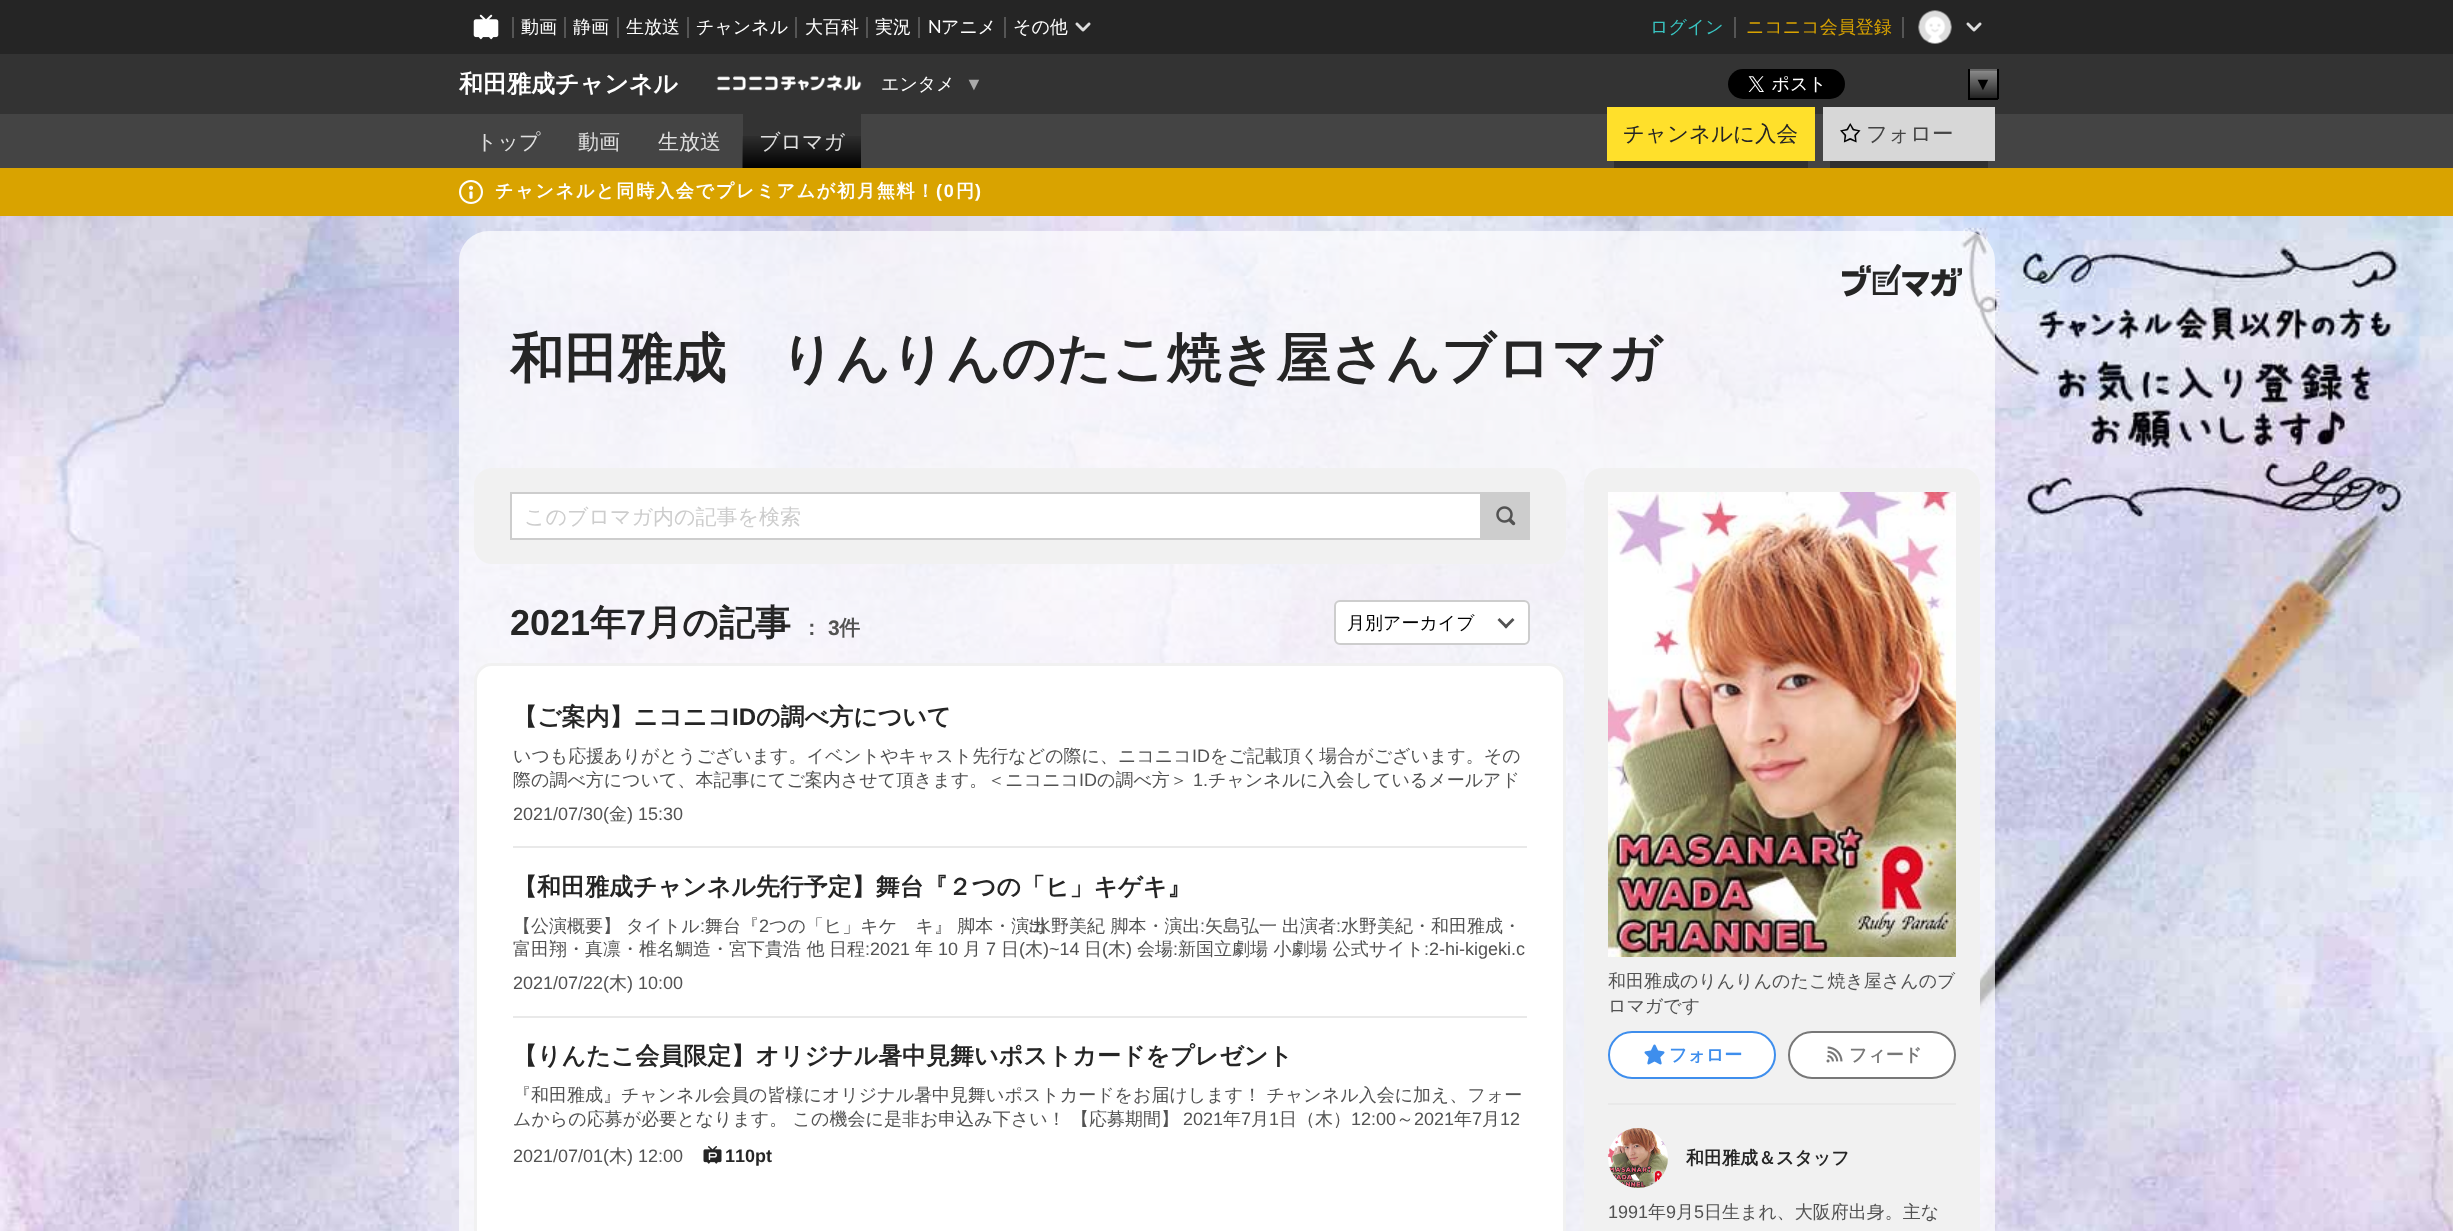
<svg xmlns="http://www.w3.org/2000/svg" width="2453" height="1231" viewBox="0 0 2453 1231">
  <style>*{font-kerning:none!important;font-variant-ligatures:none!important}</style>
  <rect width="100%" height="100%" fill="#fff"/>
  <path d="M0 0h2453v54H0z" fill="#252525"/>
  <image x="473" y="14" width="26" height="26" href="img/1.png"/>
  <path d="M512 17h2v21H512z" fill="#555"/>
  <path d="M564 17h2v21H564z" fill="#555"/>
  <path d="M617 17h2v21H617z" fill="#555"/>
  <path d="M687 17h2v21H687z" fill="#555"/>
  <path d="M795 17h2v21H795z" fill="#555"/>
  <path d="M866 17h2v21H866z" fill="#555"/>
  <path d="M918 17h2v21H918z" fill="#555"/>
  <path d="M1004 17h2v21H1004z" fill="#555"/>
  <image x="1075" y="22" width="16" height="10" href="img/2.png"/>
  <path d="M1734 17h2v21H1734z" fill="#555"/>
  <path d="M1902 17h2v21H1902z" fill="#555"/>
  <image x="1918" y="10" width="34" height="34" href="img/3.png"/>
  <image x="1966" y="22" width="16" height="10" href="img/2.png"/>
  <path d="M0 54h2453v60H0z" fill="#333"/>
  <image x="716" y="75" width="146" height="16" href="img/4.png"/>
  <image x="1728" y="69" width="117" height="30" href="img/5.png"/>
  <path d="M1970 71h27v27H1970z" fill="#888"/>
  <image x="1970" y="72" width="27" height="26" href="img/6.png"/>
  <path d="M1968 69h30v2H1968z" fill="#666"/>
  <path d="M1997 69h2v30H1997z" fill="#000"/>
  <path d="M1968 98h30v2H1968z" fill="#000"/>
  <path d="M1968 69h2v30H1968z" fill="#000"/>
  <path d="M0 114h2453v54H0z" fill="#444"/>
  <path d="M743 114h118v54H743z" fill="#333"/>
  <image x="742" y="136" width="119" height="32" href="img/7.png"/>
  <path d="M1614 161h194v7H1614z" fill="#303030"/>
  <path d="M1607 107h208v54H1607z" fill="#ffe02b"/>
  <path d="M1830 161h158v7H1830z" fill="#303030"/>
  <path d="M1823 107h172v54H1823z" fill="#d7d7d7"/>
  <image x="1840" y="123" width="21" height="20" href="img/8.png"/>
  <path d="M0 168h2453v48H0z" fill="#d9a300"/>
  <image x="459" y="180" width="24" height="24" href="img/9.png"/>
  <image x="0" y="216" width="2453" height="1015" href="img/10.png"/>
  <rect x="459" y="231" width="1536" height="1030" rx="30" fill="#ffffffb3"/>
  <image x="1842" y="264" width="120" height="33" href="img/11.png"/>
  <rect x="474" y="468" width="1092" height="96" rx="18" fill="#f1f1f1"/>
  <path d="M511 493h970v46H511z" fill="#fff" stroke="#cdcdcd" stroke-width="2"/>
  <path d="M1482 492h48v48H1482z" fill="#cdcdcd"/>
  <image x="1496" y="506" width="20" height="20" href="img/12.png"/>
  <rect x="1335" y="601" width="194" height="43" rx="5" fill="#fff" stroke="#cdcdcd" stroke-width="2"/>
  <path d="M1512.5 618L1514.5 620L1506 628.5L1504 626.5Z" fill="#525252"/>
  <path d="M1499.5 618L1508 626.5L1506 628.5L1497.5 620Z" fill="#525252"/>
  <rect x="475.5" y="664.5" width="1089" height="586" rx="16.5" fill="#fff" stroke="#f1f1f1" stroke-width="3"/>
  <path d="M513 846h1014v2H513z" fill="#e9e9e9"/>
  <path d="M513 1016h1014v2H513z" fill="#e9e9e9"/>
  <image x="703" y="1146" width="19" height="18" href="img/13.png"/>
  <rect x="1584" y="468" width="396" height="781" rx="18" fill="#f1f1f1"/>
  <image x="1608" y="492" width="348" height="465" href="img/14.png"/>
  <rect x="1609" y="1032" width="166" height="46" rx="23" fill="#fff" stroke="#3e8eed" stroke-width="2"/>
  <image x="1644" y="1044" width="21" height="21" href="img/15.png"/>
  <rect x="1789" y="1032" width="166" height="46" rx="23" fill="#fff" stroke="#777" stroke-width="2"/>
  <image x="1826" y="1046" width="17" height="17" href="img/16.png"/>
  <path d="M1608 1103h348v2H1608z" fill="#e9e9e9"/>
  <image x="1608" y="1128" width="60" height="60" href="img/17.png"/>
  <g font-family="WenQuanYi Zen Hei" font-size="18" font-weight="500" fill="#fff">
    <text x="521" y="33">動画</text>
    <text x="573" y="33">静画</text>
    <text x="626" y="33">生放送</text>
    <text x="696" y="33">チャンネル</text>
    <text x="805" y="33">大百科</text>
    <text x="875" y="33">実況</text>
  </g>
  <text x="928" y="33" font-family="Lato" font-size="18" fill="#fff">N</text>
  <g font-family="WenQuanYi Zen Hei" font-size="18" font-weight="500" fill="#fff">
    <text x="941" y="33">アニメ</text>
    <text x="1013" y="33">その他</text>
  </g>
  <text x="1650" y="33" font-family="WenQuanYi Zen Hei" font-size="18" font-weight="500" fill="#39c4c1">ログイン</text>
  <text x="1746" y="33" font-family="WenQuanYi Zen Hei" font-size="18" font-weight="500" fill="#d9a300">ニコニコ会員登録</text>
  <text x="459" y="92" font-family="WenQuanYi Zen Hei" font-size="24" font-weight="bold" fill="#fff">和田雅成チャンネル</text>
  <text x="881" y="90" font-family="WenQuanYi Zen Hei" font-size="18" font-weight="500" fill="#fff">エンタメ</text>
  <text x="965" y="90" font-family="Liberation Sans" font-size="18" fill="#aaa">▼</text>
  <text x="1974" y="90" font-family="Liberation Sans" font-size="18" fill="#000">▼</text>
  <g font-family="WenQuanYi Zen Hei" font-size="21" font-weight="500" fill="#e0e0e0">
    <text x="476" y="149">トップ</text>
    <text x="578" y="149">動画</text>
    <text x="658" y="149">生放送</text>
    <text x="759" y="149">ブロマガ</text>
  </g>
  <text x="1623" y="141" font-family="WenQuanYi Zen Hei" font-size="21.5" font-weight="500" fill="#252525">チャンネルに入会</text>
  <text x="1866" y="141" font-family="WenQuanYi Zen Hei" font-size="21.5" font-weight="500" fill="#444">フォロー</text>
  <text x="495" y="197" font-family="WenQuanYi Zen Hei" font-size="18" font-weight="bold" letter-spacing="1.8" fill="#fff">チャンネルと同時入会でプレミアムが初月無料！</text>
  <text x="936" y="197" font-family="Liberation Sans" font-size="18" font-weight="bold" letter-spacing="1.8" fill="#fff">(0</text>
  <text x="956" y="197" font-family="WenQuanYi Zen Hei" font-size="18" font-weight="bold" letter-spacing="1.8" fill="#fff">円</text>
  <text x="975" y="197" font-family="Liberation Sans" font-size="18" font-weight="bold" letter-spacing="1.8" fill="#fff">)</text>
  <text x="510" y="377" font-family="WenQuanYi Zen Hei" font-size="54" font-weight="bold" fill="#252525">和田雅成　りんりんのたこ焼き屋さんブロマガ</text>
  <text x="524" y="524" font-family="WenQuanYi Zen Hei" font-size="21" font-weight="500" fill="#cdcdcd">このブロマガ内の記事を検索</text>
  <text x="510" y="635" font-family="Liberation Sans" font-size="36" font-weight="bold" fill="#252525">2021</text>
  <text x="590" y="635" font-family="WenQuanYi Zen Hei" font-size="36" font-weight="bold" fill="#252525">年</text>
  <text x="626" y="635" font-family="Liberation Sans" font-size="36" font-weight="bold" fill="#252525">7</text>
  <text x="646" y="635" font-family="WenQuanYi Zen Hei" font-size="36" font-weight="bold" fill="#252525">月の記事</text>
  <text x="801" y="635" font-family="WenQuanYi Zen Hei" font-size="21" font-weight="bold" fill="#525252">：</text>
  <text x="828" y="635" font-family="Liberation Sans" font-size="21" font-weight="bold" fill="#525252">3</text>
  <text x="839" y="635" font-family="WenQuanYi Zen Hei" font-size="21" font-weight="bold" fill="#525252">件</text>
  <text x="1347" y="629" font-family="WenQuanYi Zen Hei" font-size="18" font-weight="500" fill="#000">月別アーカイブ</text>
  <text x="513" y="725" font-family="WenQuanYi Zen Hei" font-size="24" font-weight="bold" fill="#252525">【ご案内】ニコニコ</text>
  <text x="732" y="725" font-family="Liberation Sans" font-size="24" font-weight="bold" fill="#252525">ID</text>
  <text x="756" y="725" font-family="WenQuanYi Zen Hei" font-size="24" font-weight="bold" fill="#252525">の調べ方について</text>
  <text x="513" y="762" font-family="WenQuanYi Zen Hei" font-size="18" font-weight="500" fill="#525252">いつも応援ありがとうございます。イベントやキャスト先行などの際に、ニコニコ</text>
  <text x="1192" y="762" font-family="Liberation Sans" font-size="18" fill="#525252">ID</text>
  <g font-family="WenQuanYi Zen Hei" font-size="18" font-weight="500" fill="#525252">
    <text x="1210" y="762">をご記載頂く場合がございます。その</text>
    <text x="513" y="786">際の調べ方について、本記事にてご案内させて頂きます。＜ニコニコ</text>
  </g>
  <text x="1079" y="786" font-family="Liberation Sans" font-size="18" fill="#525252">ID</text>
  <text x="1097" y="786" font-family="WenQuanYi Zen Hei" font-size="18" font-weight="500" fill="#525252">の調べ方＞</text>
  <text x="1193" y="786" font-family="Liberation Sans" font-size="18" fill="#525252">1.</text>
  <text x="1208" y="786" font-family="WenQuanYi Zen Hei" font-size="18" font-weight="500" fill="#525252">チャンネルに入会しているメールアド</text>
  <text x="513" y="820" font-family="Liberation Sans" font-size="18" fill="#525252">2021/07/30(</text>
  <text x="609" y="820" font-family="WenQuanYi Zen Hei" font-size="18" font-weight="500" fill="#525252">金</text>
  <text x="627" y="820" font-family="Liberation Sans" font-size="18" fill="#525252">) 15:30</text>
  <text x="513" y="895" font-family="WenQuanYi Zen Hei" font-size="24" font-weight="bold" fill="#252525">【和田雅成チャンネル先行予定】舞台『２つの「ヒ」キゲキ』</text>
  <g font-family="WenQuanYi Zen Hei" font-size="18" font-weight="500" fill="#525252">
    <text x="513" y="932">【公演概要】</text>
    <text x="626" y="932">タイトル</text>
  </g>
  <text x="700" y="932" font-family="Liberation Sans" font-size="18" fill="#525252">:</text>
  <text x="705" y="932" font-family="WenQuanYi Zen Hei" font-size="18" font-weight="500" fill="#525252">舞台『</text>
  <text x="759" y="932" font-family="Liberation Sans" font-size="18" fill="#525252">2</text>
  <text x="769" y="932" font-family="WenQuanYi Zen Hei" font-size="18" font-weight="500" fill="#525252">つの「ヒ」キゲキ』 脚本・演出</text>
  <text x="1028" y="932" font-family="Liberation Sans" font-size="18" fill="#525252">:</text>
  <text x="1033" y="932" font-family="WenQuanYi Zen Hei" font-size="18" font-weight="500" fill="#525252">水野美紀 脚本・演出</text>
  <text x="1200" y="932" font-family="Liberation Sans" font-size="18" fill="#525252">:</text>
  <g font-family="WenQuanYi Zen Hei" font-size="18" font-weight="500" fill="#525252">
    <text x="1205" y="932">矢島弘一</text>
    <text x="1282" y="932">出演者</text>
  </g>
  <text x="1336" y="932" font-family="Liberation Sans" font-size="18" fill="#525252">:</text>
  <g font-family="WenQuanYi Zen Hei" font-size="18" font-weight="500" fill="#525252">
    <text x="1341" y="932">水野美紀・和田雅成・</text>
    <text x="513" y="955">富田翔・真凛・椎名鯛造・宮下貴浩 他</text>
    <text x="829" y="955">日程</text>
  </g>
  <text x="865" y="955" font-family="Liberation Sans" font-size="18" fill="#525252">:2021</text>
  <text x="915" y="955" font-family="WenQuanYi Zen Hei" font-size="18" font-weight="500" fill="#525252">年</text>
  <text x="938" y="955" font-family="Liberation Sans" font-size="18" fill="#525252">10</text>
  <text x="963" y="955" font-family="WenQuanYi Zen Hei" font-size="18" font-weight="500" fill="#525252">月</text>
  <text x="986" y="955" font-family="Liberation Sans" font-size="18" fill="#525252">7</text>
  <text x="1001" y="955" font-family="WenQuanYi Zen Hei" font-size="18" font-weight="500" fill="#525252">日</text>
  <text x="1019" y="955" font-family="Liberation Sans" font-size="18" fill="#525252">(</text>
  <text x="1025" y="955" font-family="WenQuanYi Zen Hei" font-size="18" font-weight="500" fill="#525252">木</text>
  <text x="1043" y="955" font-family="Liberation Sans" font-size="18" fill="#525252">)~14</text>
  <text x="1084" y="955" font-family="WenQuanYi Zen Hei" font-size="18" font-weight="500" fill="#525252">日</text>
  <text x="1102" y="955" font-family="Liberation Sans" font-size="18" fill="#525252">(</text>
  <text x="1108" y="955" font-family="WenQuanYi Zen Hei" font-size="18" font-weight="500" fill="#525252">木</text>
  <text x="1126" y="955" font-family="Liberation Sans" font-size="18" fill="#525252">)</text>
  <text x="1137" y="955" font-family="WenQuanYi Zen Hei" font-size="18" font-weight="500" fill="#525252">会場</text>
  <text x="1173" y="955" font-family="Liberation Sans" font-size="18" fill="#525252">:</text>
  <text x="1178" y="955" font-family="WenQuanYi Zen Hei" font-size="18" font-weight="500" fill="#525252">新国立劇場 小劇場 公式サイト</text>
  <g font-family="Liberation Sans" font-size="18" fill="#525252">
    <text x="1424" y="955">:2-hi-kigeki.c</text>
    <text x="513" y="989">2021/07/22(</text>
  </g>
  <text x="609" y="989" font-family="WenQuanYi Zen Hei" font-size="18" font-weight="500" fill="#525252">木</text>
  <text x="627" y="989" font-family="Liberation Sans" font-size="18" fill="#525252">) 10:00</text>
  <text x="513" y="1064" font-family="WenQuanYi Zen Hei" font-size="24" font-weight="bold" fill="#252525">【りんたこ会員限定】オリジナル暑中見舞いポストカードをプレゼント</text>
  <g font-family="WenQuanYi Zen Hei" font-size="18" font-weight="500" fill="#525252">
    <text x="513" y="1101">『和田雅成』チャンネル会員の皆様にオリジナル暑中見舞いポストカードをお届けします！ チャンネル入会に加え、フォー</text>
    <text x="513" y="1125">ムからの応募が必要となります。 この機会に是非お申込み下さい！ 【応募期間】</text>
  </g>
  <text x="1183" y="1125" font-family="Liberation Sans" font-size="18" fill="#525252">2021</text>
  <text x="1223" y="1125" font-family="WenQuanYi Zen Hei" font-size="18" font-weight="500" fill="#525252">年</text>
  <text x="1241" y="1125" font-family="Liberation Sans" font-size="18" fill="#525252">7</text>
  <text x="1251" y="1125" font-family="WenQuanYi Zen Hei" font-size="18" font-weight="500" fill="#525252">月</text>
  <text x="1269" y="1125" font-family="Liberation Sans" font-size="18" fill="#525252">1</text>
  <text x="1279" y="1125" font-family="WenQuanYi Zen Hei" font-size="18" font-weight="500" fill="#525252">日（木）</text>
  <text x="1351" y="1125" font-family="Liberation Sans" font-size="18" fill="#525252">12:00</text>
  <text x="1396" y="1125" font-family="WenQuanYi Zen Hei" font-size="18" font-weight="500" fill="#525252">～</text>
  <text x="1414" y="1125" font-family="Liberation Sans" font-size="18" fill="#525252">2021</text>
  <text x="1454" y="1125" font-family="WenQuanYi Zen Hei" font-size="18" font-weight="500" fill="#525252">年</text>
  <text x="1472" y="1125" font-family="Liberation Sans" font-size="18" fill="#525252">7</text>
  <text x="1482" y="1125" font-family="WenQuanYi Zen Hei" font-size="18" font-weight="500" fill="#525252">月</text>
  <g font-family="Liberation Sans" font-size="18" fill="#525252">
    <text x="1500" y="1125">12</text>
    <text x="513" y="1162">2021/07/01(</text>
  </g>
  <text x="609" y="1162" font-family="WenQuanYi Zen Hei" font-size="18" font-weight="500" fill="#525252">木</text>
  <text x="627" y="1162" font-family="Liberation Sans" font-size="18" fill="#525252">) 12:00</text>
  <text x="725" y="1162" font-family="Liberation Sans" font-size="18" font-weight="bold" fill="#252525">110pt</text>
  <g font-family="WenQuanYi Zen Hei" font-size="18" font-weight="500" fill="#525252">
    <text x="1608" y="987">和田雅成のりんりんのたこ焼き屋さんのブ</text>
    <text x="1608" y="1012">ロマガです</text>
  </g>
  <text x="1669" y="1061" font-family="WenQuanYi Zen Hei" font-size="18" font-weight="bold" fill="#3e8eed">フォロー</text>
  <text x="1849" y="1061" font-family="WenQuanYi Zen Hei" font-size="18" font-weight="bold" fill="#777">フィード</text>
  <text x="1686" y="1164" font-family="WenQuanYi Zen Hei" font-size="18" font-weight="bold" fill="#252525">和田雅成＆スタッフ</text>
  <text x="1608" y="1218" font-family="Liberation Sans" font-size="18" fill="#525252">1991</text>
  <text x="1648" y="1218" font-family="WenQuanYi Zen Hei" font-size="18" font-weight="500" fill="#525252">年</text>
  <text x="1666" y="1218" font-family="Liberation Sans" font-size="18" fill="#525252">9</text>
  <text x="1676" y="1218" font-family="WenQuanYi Zen Hei" font-size="18" font-weight="500" fill="#525252">月</text>
  <text x="1694" y="1218" font-family="Liberation Sans" font-size="18" fill="#525252">5</text>
  <text x="1704" y="1218" font-family="WenQuanYi Zen Hei" font-size="18" font-weight="500" fill="#525252">日生まれ、大阪府出身。主な</text>
</svg>
